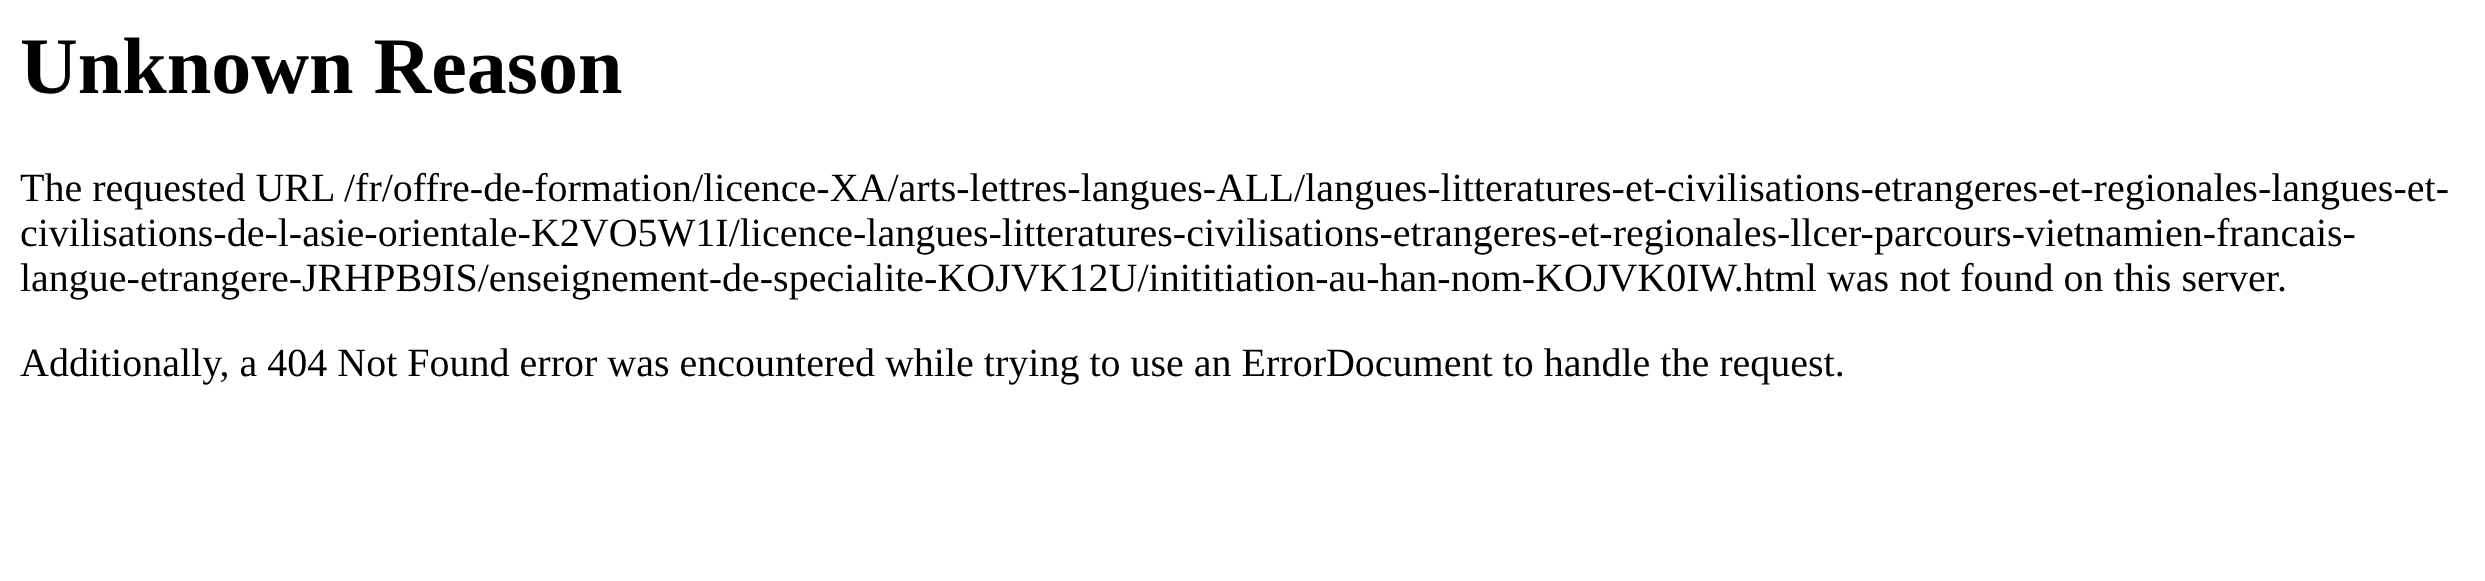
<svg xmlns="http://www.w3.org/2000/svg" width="2485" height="581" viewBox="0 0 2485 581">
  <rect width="100%" height="100%" fill="#fff"/>
  <text x="20" y="93" font-family="Liberation Serif" font-size="80" font-weight="bold" fill="#000">Unknown Reason</text>
  <g font-family="Liberation Serif" font-size="40" fill="#000">
    <text x="20" y="201">The requested URL /fr/offre-de-formation/licence-XA/arts-lettres-langues-ALL/langues-litteratures-et-civilisations-etrangeres-et-regionales-langues-et-</text>
    <text x="20" y="246">civilisations-de-l-asie-orientale-K2VO5W1I/licence-langues-litteratures-civilisations-etrangeres-et-regionales-llcer-parcours-vietnamien-francais-</text>
    <text x="20" y="291">langue-etrangere-JRHPB9IS/enseignement-de-specialite-KOJVK12U/inititiation-au-han-nom-KOJVK0IW.html was not found on this server.</text>
    <text x="20" y="376">Additionally, a 404 Not Found error was encountered while trying to use an ErrorDocument to handle the request.</text>
  </g>
</svg>
